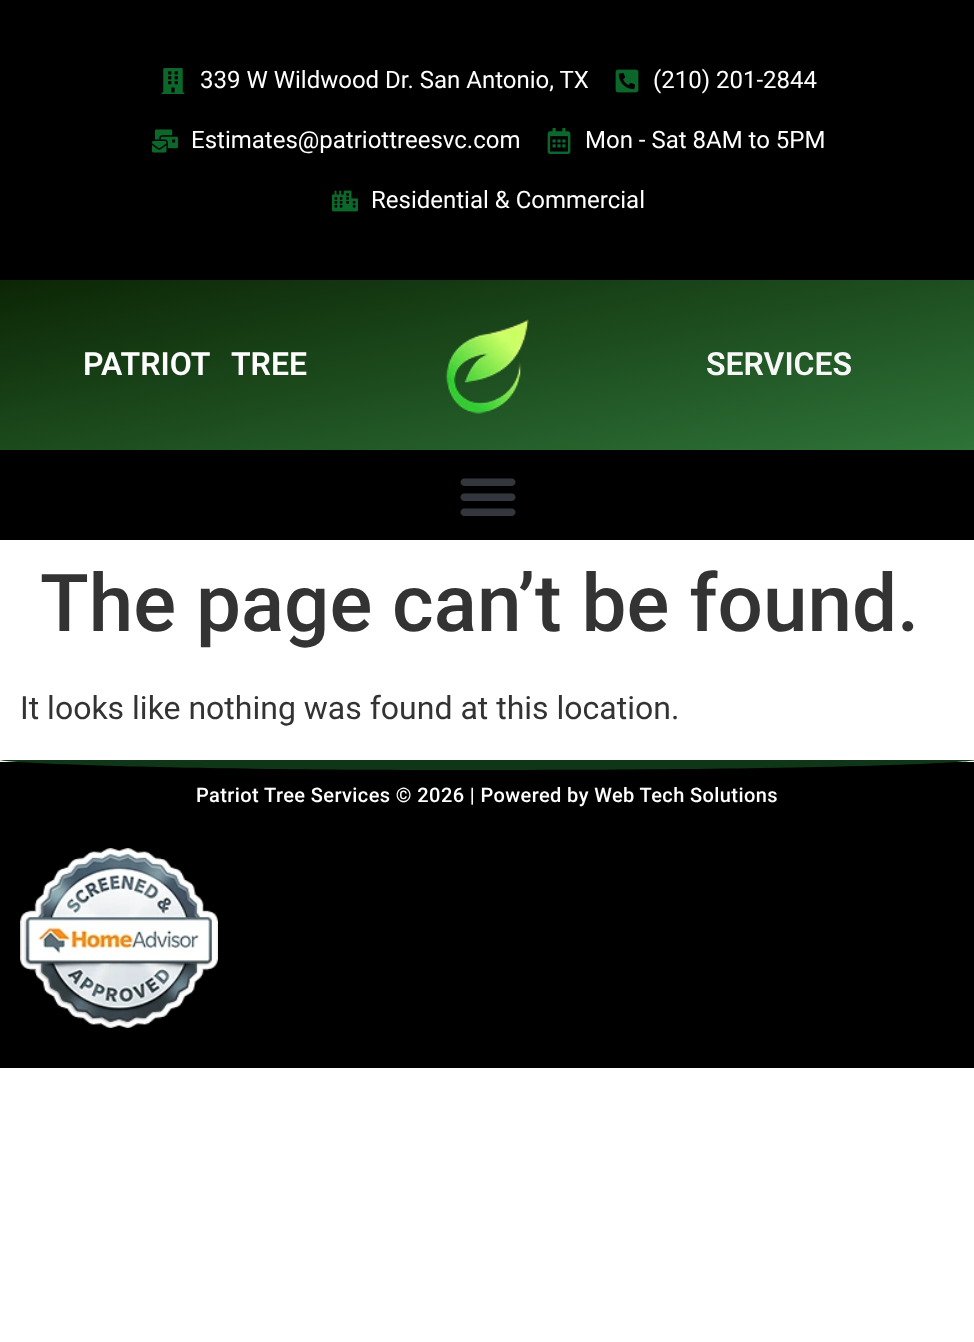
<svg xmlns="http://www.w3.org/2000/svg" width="974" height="1342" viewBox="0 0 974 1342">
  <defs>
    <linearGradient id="g1" gradientUnits="userSpaceOnUse" x1="453" y1="192" x2="521" y2="538"><stop offset="0" stop-color="#0c2605"/><stop offset="1" stop-color="#2e7338"/></linearGradient>
  </defs>
  <rect width="100%" height="100%" fill="#fff"/>
  <path d="M0 0h974v280H0z" fill="#000"/>
  <image x="161" y="68" width="24" height="26" href="img/1.png"/>
  <image x="615" y="69" width="24" height="24" href="img/2.png"/>
  <image x="152" y="129" width="26" height="24" href="img/3.png"/>
  <image x="547" y="128" width="24" height="26" href="img/4.png"/>
  <image x="332" y="190" width="26" height="22" href="img/5.png"/>
  <path d="M0 280h974v170H0z" fill="url(#g1)"/>
  <image x="445" y="319" width="84" height="95" href="img/6.png"/>
  <path d="M0 450h974v90H0z" fill="#000"/>
  <image x="460" y="478" width="56" height="38" href="img/7.png"/>
  <path d="M0 762h974v306H0z" fill="#000"/>
  <path d="M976 760H0C1 762 123 770 488 770C853 770 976 762 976 760Z" fill="#0e3617"/>
  <image x="20" y="848" width="198" height="180" href="img/8.png"/>
  <g font-family="Roboto" font-size="24" fill="#fff">
    <text x="200" y="88">339 W Wildwood Dr. San Antonio, TX</text>
    <text x="653" y="88">(210) 201-2844</text>
    <text x="191" y="148">Estimates@patriottreesvc.com</text>
    <text x="585" y="148">Mon - Sat 8AM to 5PM</text>
    <text x="371" y="208">Residential &amp; Commercial</text>
  </g>
  <text x="83" y="375" word-spacing="14" font-family="Roboto" font-size="32" font-weight="600" fill="#fff">PATRIOT TREE</text>
  <text x="706" y="375" font-family="Roboto" font-size="32" font-weight="600" fill="#f7f7f7">SERVICES</text>
  <text x="40" y="631" font-family="Roboto" font-size="80" font-weight="500" fill="#333">The page can’t be found.</text>
  <text x="20" y="719" font-family="Roboto" font-size="32" fill="#333">It looks like nothing was found at this location.</text>
  <text x="196" y="802" font-family="Roboto" font-size="20" font-weight="500" letter-spacing="0.4" fill="#fff">Patriot Tree Services © 2026 | Powered by Web Tech Solutions</text>
</svg>
